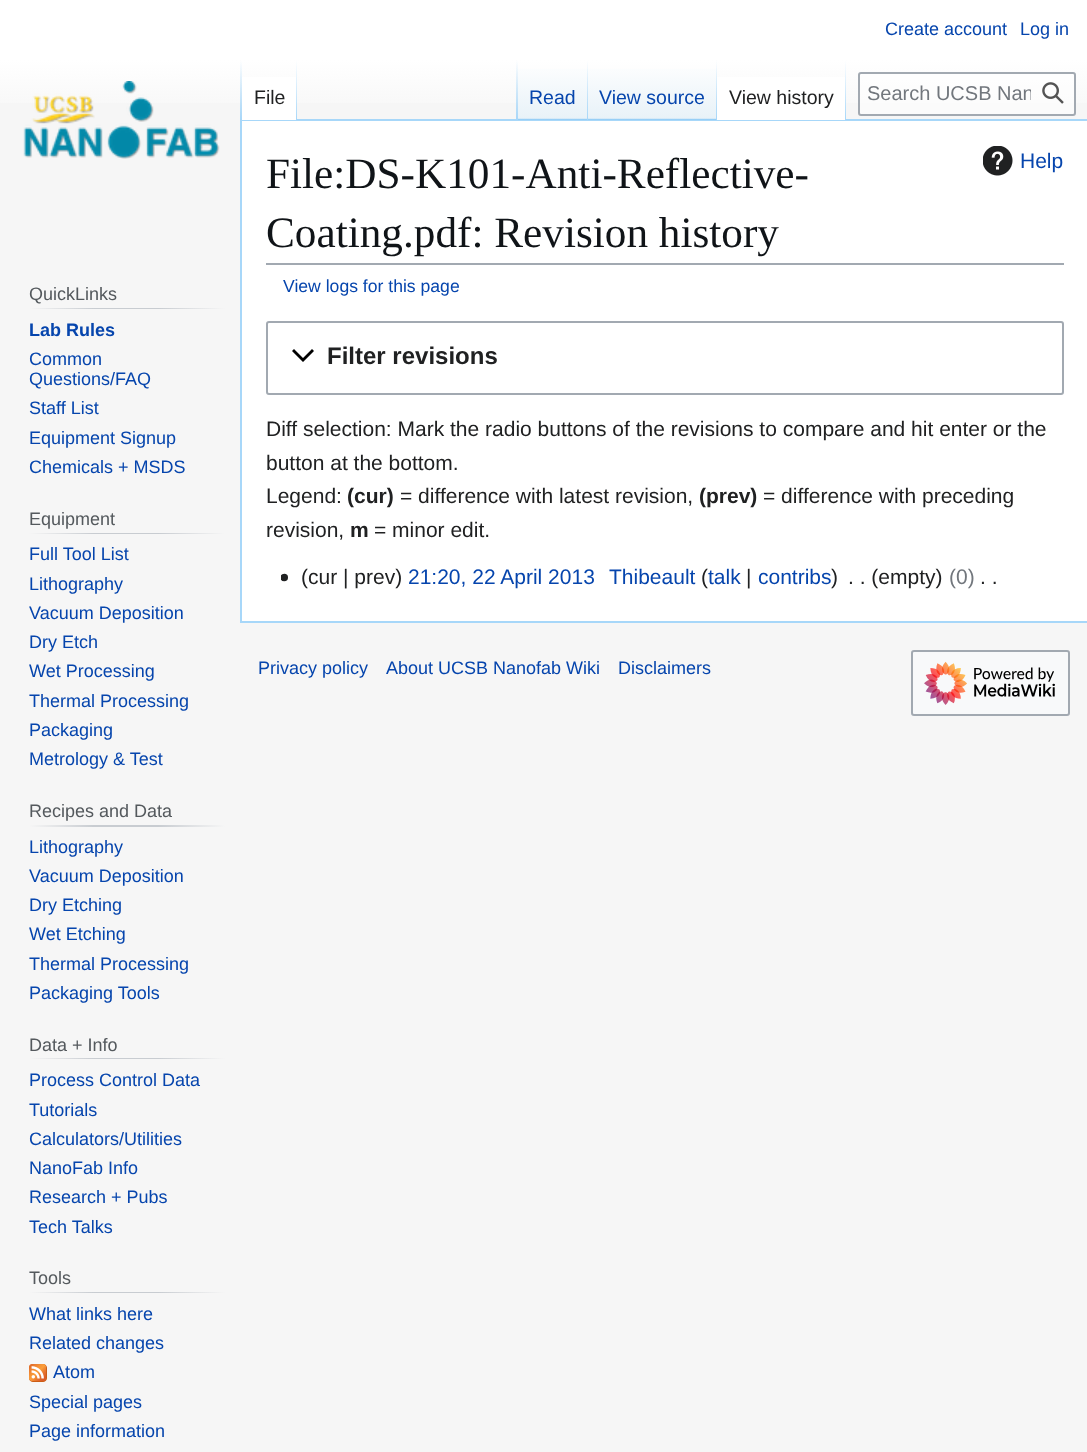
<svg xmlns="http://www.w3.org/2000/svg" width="1087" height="1452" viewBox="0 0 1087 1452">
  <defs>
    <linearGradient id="g1" gradientUnits="userSpaceOnUse" x1="544" y1="0" x2="544" y2="120"><stop offset="0.5" stop-color="#fff"/><stop offset="1" stop-color="#f6f6f6"/></linearGradient>
    <linearGradient id="g2" gradientUnits="userSpaceOnUse" x1="241" y1="60" x2="241" y2="120"><stop offset="0" stop-color="#a7d7f9" stop-opacity="0"/><stop offset="1" stop-color="#a7d7f9"/></linearGradient>
    <linearGradient id="g3" gradientUnits="userSpaceOnUse" x1="296" y1="60" x2="296" y2="120"><stop offset="0" stop-color="#fff"/><stop offset="1" stop-color="#a7d7f9"/></linearGradient>
    <linearGradient id="g4" gradientUnits="userSpaceOnUse" x1="517" y1="60" x2="517" y2="120"><stop offset="0" stop-color="#a7d7f9" stop-opacity="0"/><stop offset="1" stop-color="#a7d7f9"/></linearGradient>
    <linearGradient id="g5" gradientUnits="userSpaceOnUse" x1="553" y1="120" x2="553" y2="60"><stop offset="0" stop-color="#77c1f6"/><stop offset="0.03" stop-color="#e8f2f8"/><stop offset="1" stop-color="#fff"/></linearGradient>
    <linearGradient id="g6" gradientUnits="userSpaceOnUse" x1="587" y1="60" x2="587" y2="120"><stop offset="0" stop-color="#a7d7f9" stop-opacity="0"/><stop offset="1" stop-color="#a7d7f9"/></linearGradient>
    <linearGradient id="g7" gradientUnits="userSpaceOnUse" x1="653" y1="120" x2="653" y2="60"><stop offset="0" stop-color="#77c1f6"/><stop offset="0.03" stop-color="#e8f2f8"/><stop offset="1" stop-color="#fff"/></linearGradient>
    <linearGradient id="g8" gradientUnits="userSpaceOnUse" x1="716" y1="60" x2="716" y2="120"><stop offset="0" stop-color="#a7d7f9" stop-opacity="0"/><stop offset="1" stop-color="#a7d7f9"/></linearGradient>
    <linearGradient id="g9" gradientUnits="userSpaceOnUse" x1="845" y1="60" x2="845" y2="120"><stop offset="0" stop-color="#fff"/><stop offset="1" stop-color="#a7d7f9"/></linearGradient>
    <linearGradient id="g10" gradientUnits="userSpaceOnUse" x1="29" y1="308" x2="225" y2="308"><stop offset="0" stop-color="#f6f6f6"/><stop offset="0.33" stop-color="#c8ccd1"/><stop offset="0.66" stop-color="#c8ccd1"/><stop offset="1" stop-color="#f6f6f6"/></linearGradient>
    <linearGradient id="g11" gradientUnits="userSpaceOnUse" x1="29" y1="533" x2="225" y2="533"><stop offset="0" stop-color="#f6f6f6"/><stop offset="0.33" stop-color="#c8ccd1"/><stop offset="0.66" stop-color="#c8ccd1"/><stop offset="1" stop-color="#f6f6f6"/></linearGradient>
    <linearGradient id="g12" gradientUnits="userSpaceOnUse" x1="29" y1="826" x2="225" y2="826"><stop offset="0" stop-color="#f6f6f6"/><stop offset="0.33" stop-color="#c8ccd1"/><stop offset="0.66" stop-color="#c8ccd1"/><stop offset="1" stop-color="#f6f6f6"/></linearGradient>
    <linearGradient id="g13" gradientUnits="userSpaceOnUse" x1="29" y1="1058" x2="225" y2="1058"><stop offset="0" stop-color="#f6f6f6"/><stop offset="0.33" stop-color="#c8ccd1"/><stop offset="0.66" stop-color="#c8ccd1"/><stop offset="1" stop-color="#f6f6f6"/></linearGradient>
    <linearGradient id="g14" gradientUnits="userSpaceOnUse" x1="29" y1="1292" x2="225" y2="1292"><stop offset="0" stop-color="#f6f6f6"/><stop offset="0.33" stop-color="#c8ccd1"/><stop offset="0.66" stop-color="#c8ccd1"/><stop offset="1" stop-color="#f6f6f6"/></linearGradient>
    <clipPath id="clip1"><path d="M867 83h164v22H867z"/></clipPath>
  </defs>
  <rect width="100%" height="100%" fill="#f6f6f6"/>
  <path d="M0 0h1087v103H0z" fill="url(#g1)"/>
  <path d="M240 119h847v2H240z" fill="#a7d7f9"/>
  <path d="M240 621h847v2H240z" fill="#a7d7f9"/>
  <path d="M240 119h2v504H240z" fill="#a7d7f9"/>
  <path d="M240 60h2v60H240z" fill="url(#g2)"/>
  <path d="M242 77h54v43H242z" fill="#fff"/>
  <path d="M296 60h1v60H296z" fill="url(#g3)"/>
  <path d="M516 60h2v60H516z" fill="url(#g4)"/>
  <path d="M518 69h70v51H518z" fill="url(#g5)"/>
  <path d="M587 60h1v60H587z" fill="url(#g6)"/>
  <path d="M588 69h129v51H588z" fill="url(#g7)"/>
  <path d="M716 60h1v60H716z" fill="url(#g8)"/>
  <path d="M717 77h128v43H717z" fill="#fff"/>
  <path d="M845 60h1v60H845z" fill="url(#g9)"/>
  <rect x="859" y="73" width="216" height="42" rx="2" fill="#ffffff80" stroke="#a2a9b1" stroke-width="2"/>
  <image x="1042" y="82" width="22" height="22" href="img/1.png"/>
  <image x="23" y="81" width="197" height="78" href="img/2.png"/>
  <path d="M29 308h196v1H29z" fill="url(#g10)"/>
  <path d="M29 533h196v1H29z" fill="url(#g11)"/>
  <path d="M29 825h196v2H29z" fill="url(#g12)"/>
  <path d="M29 1058h196v1H29z" fill="url(#g13)"/>
  <path d="M29 1292h196v1H29z" fill="url(#g14)"/>
  <image x="29" y="1364" width="18" height="18" href="img/3.png"/>
  <path d="M242 121h845v500H242z" fill="#fff"/>
  <path d="M266 263h798v2H266z" fill="#a2a9b1"/>
  <image x="983" y="146" width="30" height="30" href="img/4.png"/>
  <rect x="267" y="322" width="796" height="72" rx="2" fill="none" stroke="#a2a9b1" stroke-width="2"/>
  <path d="M312 349L303 358L294 349L292 351L303 362L314 351Z" fill="#000"/>
  <image x="281" y="573" width="7" height="9" href="img/5.png"/>
  <rect x="912" y="651" width="157" height="64" rx="2" fill="#f8f9fa" stroke="#a2a9b1" stroke-width="2"/>
  <image x="924" y="661" width="131" height="44" href="img/6.png"/>
  <g font-family="Liberation Sans" font-size="18" fill="#0645ad">
    <text x="885" y="35">Create account</text>
    <text x="1020" y="35">Log in</text>
  </g>
  <text x="254" y="104" font-family="Liberation Sans" font-size="19.5" fill="#202122">File</text>
  <g font-family="Liberation Sans" font-size="19.5" fill="#0645ad">
    <text x="529" y="104">Read</text>
    <text x="599" y="104">View source</text>
  </g>
  <text x="729" y="104" font-family="Liberation Sans" font-size="19.5" fill="#202122">View history</text>
  <g clip-path="url(#clip1)">
    <text x="867" y="100" font-family="Liberation Sans" font-size="20" fill="#72777d">Search UCSB Nan</text>
  </g>
  <text x="29" y="300" font-family="Liberation Sans" font-size="18" fill="#54595d">QuickLinks</text>
  <text x="29" y="336" font-family="Liberation Sans" font-size="18" font-weight="bold" fill="#0645ad">Lab Rules</text>
  <g font-family="Liberation Sans" font-size="18" fill="#0645ad">
    <text x="29" y="365">Common</text>
    <text x="29" y="385">Questions/FAQ</text>
    <text x="29" y="414">Staff List</text>
    <text x="29" y="444">Equipment Signup</text>
    <text x="29" y="473">Chemicals + MSDS</text>
  </g>
  <text x="29" y="525" font-family="Liberation Sans" font-size="18" fill="#54595d">Equipment</text>
  <g font-family="Liberation Sans" font-size="18" fill="#0645ad">
    <text x="29" y="560">Full Tool List</text>
    <text x="29" y="590">Lithography</text>
    <text x="29" y="619">Vacuum Deposition</text>
    <text x="29" y="648">Dry Etch</text>
    <text x="29" y="677">Wet Processing</text>
    <text x="29" y="707">Thermal Processing</text>
    <text x="29" y="736">Packaging</text>
    <text x="29" y="765">Metrology &amp; Test</text>
  </g>
  <text x="29" y="817" font-family="Liberation Sans" font-size="18" fill="#54595d">Recipes and Data</text>
  <g font-family="Liberation Sans" font-size="18" fill="#0645ad">
    <text x="29" y="853">Lithography</text>
    <text x="29" y="882">Vacuum Deposition</text>
    <text x="29" y="911">Dry Etching</text>
    <text x="29" y="940">Wet Etching</text>
    <text x="29" y="970">Thermal Processing</text>
    <text x="29" y="999">Packaging Tools</text>
  </g>
  <text x="29" y="1051" font-family="Liberation Sans" font-size="18" fill="#54595d">Data + Info</text>
  <g font-family="Liberation Sans" font-size="18" fill="#0645ad">
    <text x="29" y="1086">Process Control Data</text>
    <text x="29" y="1116">Tutorials</text>
    <text x="29" y="1145">Calculators/Utilities</text>
    <text x="29" y="1174">NanoFab Info</text>
    <text x="29" y="1203">Research + Pubs</text>
    <text x="29" y="1233">Tech Talks</text>
  </g>
  <text x="29" y="1284" font-family="Liberation Sans" font-size="18" fill="#54595d">Tools</text>
  <g font-family="Liberation Sans" font-size="18" fill="#0645ad">
    <text x="29" y="1320">What links here</text>
    <text x="29" y="1349">Related changes</text>
    <text x="53" y="1378">Atom</text>
    <text x="29" y="1408">Special pages</text>
    <text x="29" y="1437">Page information</text>
  </g>
  <g font-family="Liberation Serif" font-size="43.25" fill="#101418">
    <text x="266" y="188">File:DS-K101-Anti-Reflective-</text>
    <text x="266" y="247">Coating.pdf: Revision history</text>
  </g>
  <text x="1020" y="168" font-family="Liberation Sans" font-size="21" fill="#0645ad">Help</text>
  <text x="283" y="292" font-family="Liberation Sans" font-size="17.6" fill="#0645ad">View logs for this page</text>
  <text x="327" y="364" font-family="Liberation Sans" font-size="24" font-weight="bold" fill="#202122">Filter revisions</text>
  <g font-family="Liberation Sans" font-size="21" fill="#202122">
    <text x="266" y="436">Diff selection: Mark the radio buttons of the revisions to compare and hit enter or the</text>
    <text x="266" y="470">button at the bottom.</text>
    <text x="266" y="503">Legend:</text>
  </g>
  <text x="347" y="503" font-family="Liberation Sans" font-size="21" font-weight="bold" fill="#202122">(cur)</text>
  <text x="400" y="503" font-family="Liberation Sans" font-size="21" fill="#202122">= difference with latest revision,</text>
  <text x="699" y="503" font-family="Liberation Sans" font-size="21" font-weight="bold" fill="#202122">(prev)</text>
  <g font-family="Liberation Sans" font-size="21" fill="#202122">
    <text x="763" y="503">= difference with preceding</text>
    <text x="266" y="537">revision,</text>
  </g>
  <text x="350" y="537" font-family="Liberation Sans" font-size="21" font-weight="bold" fill="#202122">m</text>
  <g font-family="Liberation Sans" font-size="21" fill="#202122">
    <text x="374" y="537">= minor edit.</text>
    <text x="301" y="584">(cur | prev)</text>
  </g>
  <g font-family="Liberation Sans" font-size="21" fill="#0645ad">
    <text x="408" y="584">21:20, 22 April 2013</text>
    <text x="609" y="584">Thibeault</text>
  </g>
  <text x="701" y="584" font-family="Liberation Sans" font-size="21" fill="#202122">(</text>
  <text x="708" y="584" font-family="Liberation Sans" font-size="21" fill="#0645ad">talk</text>
  <text x="746" y="584" font-family="Liberation Sans" font-size="21" fill="#202122">|</text>
  <text x="758" y="584" font-family="Liberation Sans" font-size="21" fill="#0645ad">contribs</text>
  <g font-family="Liberation Sans" font-size="21" fill="#202122">
    <text x="831" y="584">)</text>
    <text x="848" y="584">. . (empty)</text>
  </g>
  <text x="949" y="584" font-family="Liberation Sans" font-size="21" fill="#72777d">(0)</text>
  <text x="980" y="584" font-family="Liberation Sans" font-size="21" fill="#202122">. .</text>
  <g font-family="Liberation Sans" font-size="18" fill="#0645ad">
    <text x="258" y="674">Privacy policy</text>
    <text x="386" y="674">About UCSB Nanofab Wiki</text>
    <text x="618" y="674">Disclaimers</text>
  </g>
</svg>
